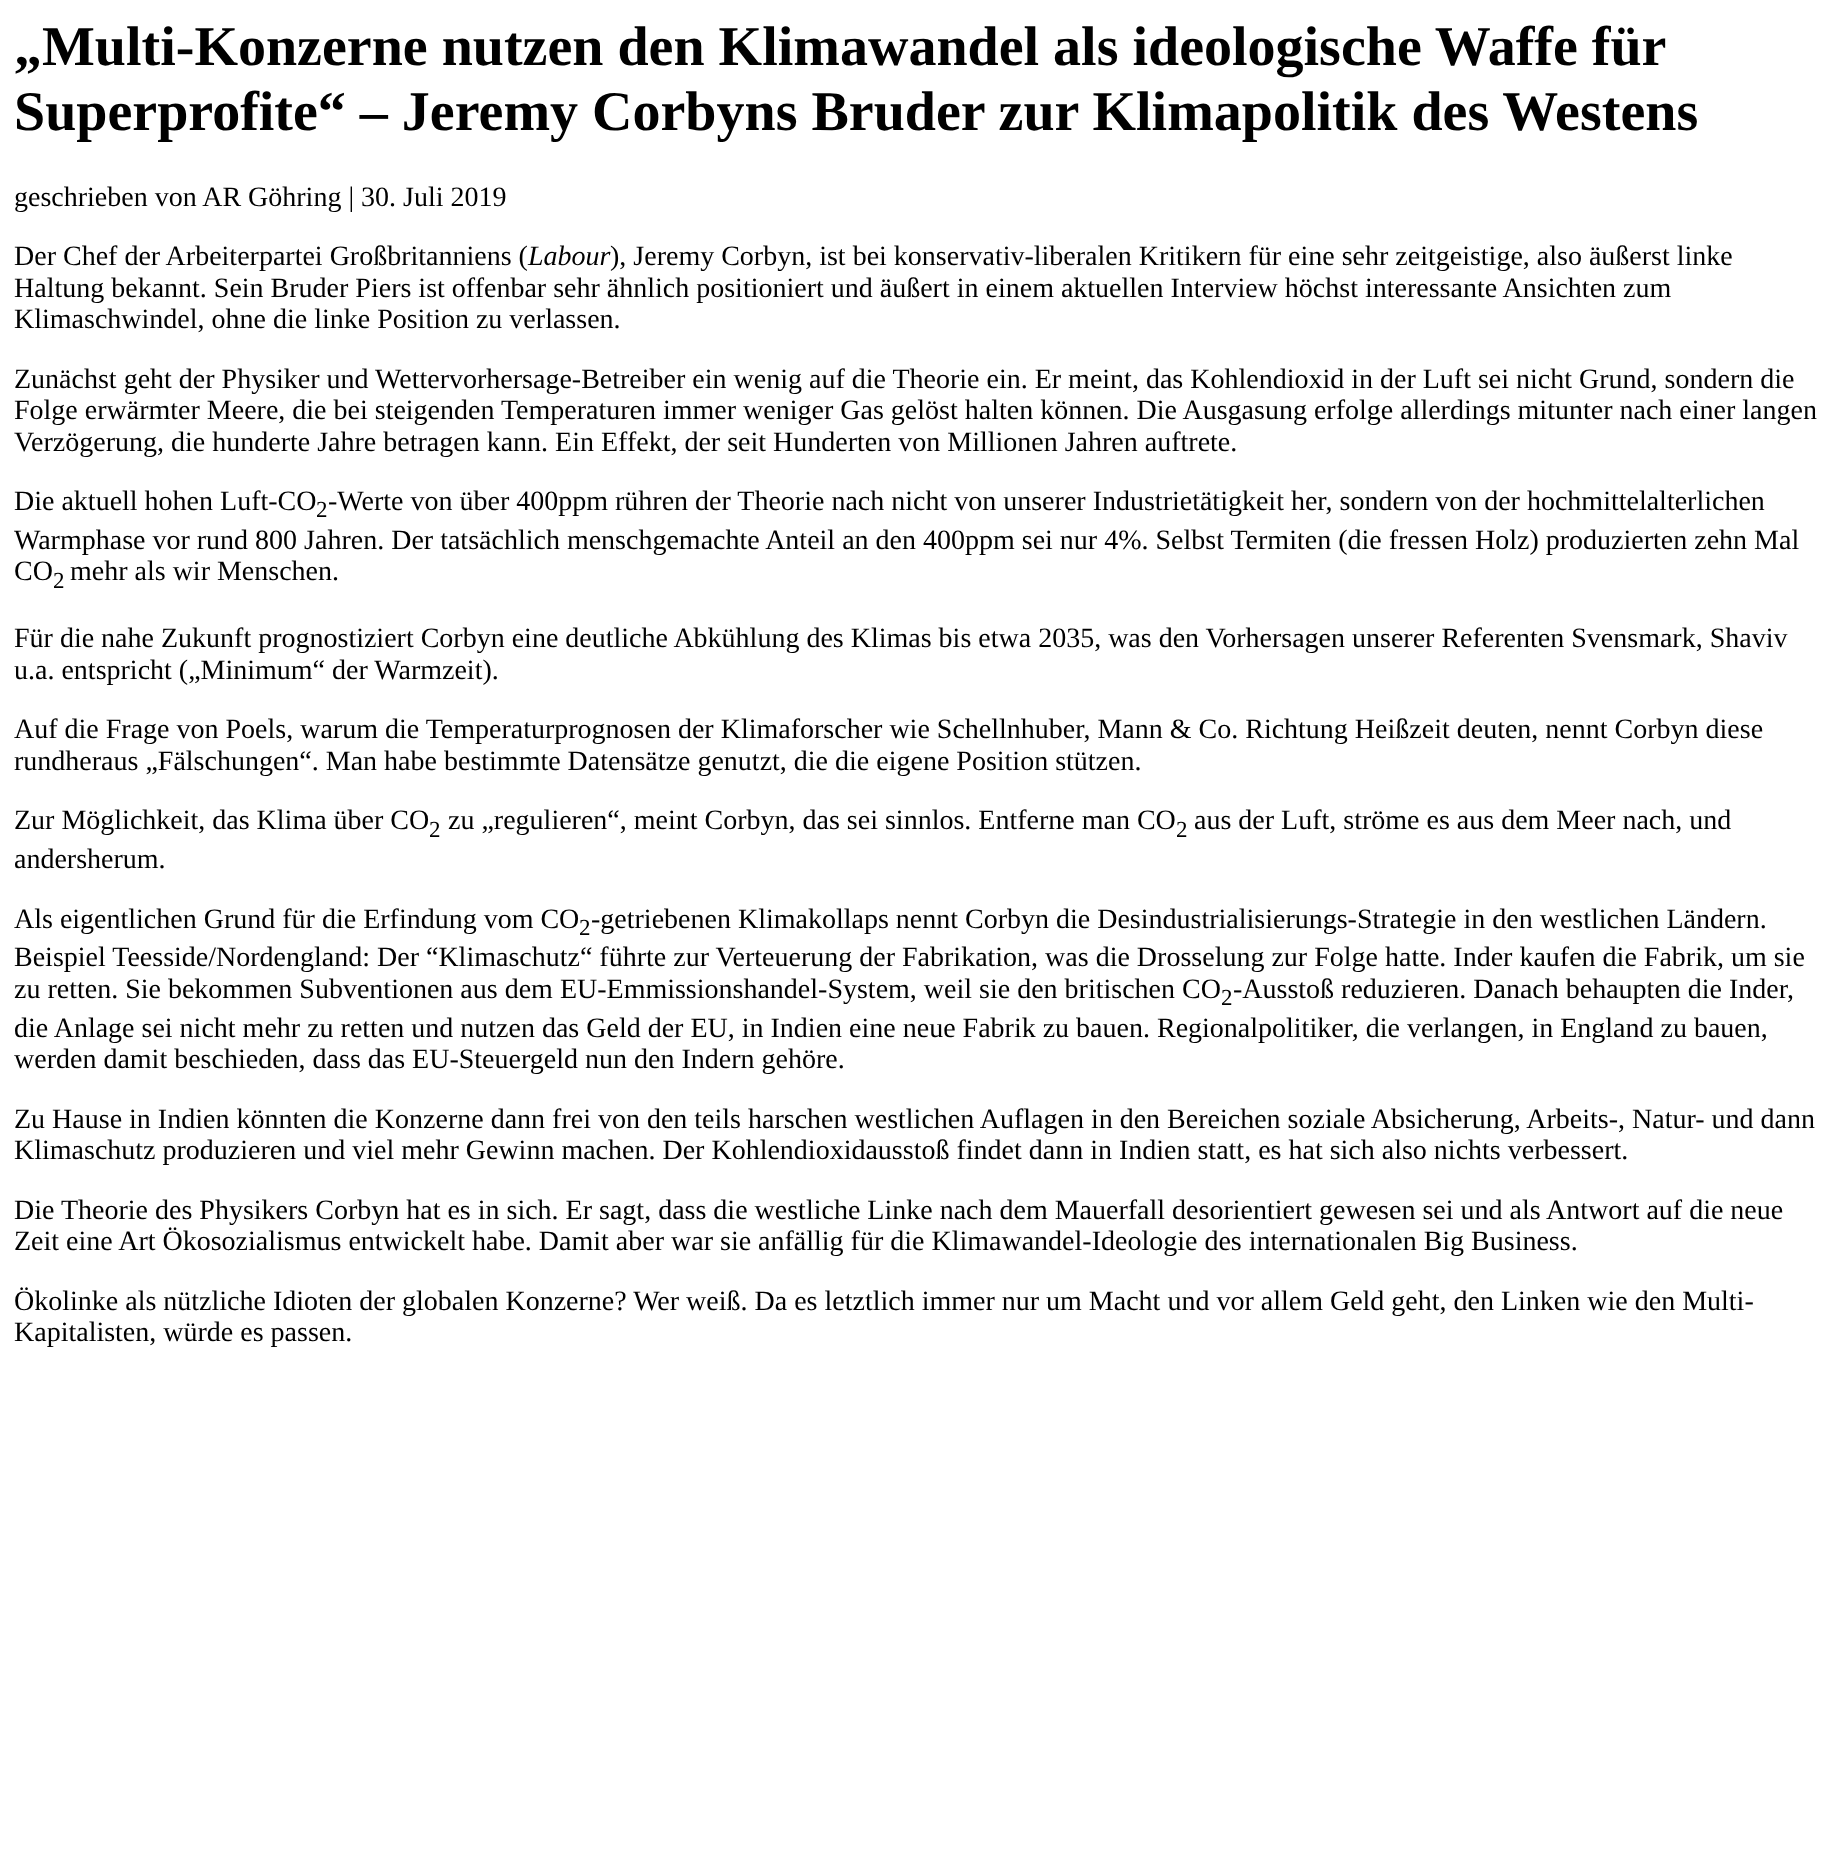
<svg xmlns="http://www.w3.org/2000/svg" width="1836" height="1864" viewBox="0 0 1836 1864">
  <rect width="100%" height="100%" fill="#fff"/>
  <g font-family="Liberation Serif" font-size="56" font-weight="bold" fill="#000">
    <text x="14" y="65">„Multi-Konzerne nutzen den Klimawandel als ideologische Waffe für</text>
    <text x="14" y="130">Superprofite“ – Jeremy Corbyns Bruder zur Klimapolitik des Westens</text>
  </g>
  <g font-family="Liberation Serif" font-size="28" fill="#000">
    <text x="14" y="206">geschrieben von AR Göhring | 30. Juli 2019</text>
    <text x="14" y="265">Der Chef der Arbeiterpartei Großbritanniens (</text>
  </g>
  <text x="528" y="265" font-family="Liberation Serif" font-size="28" font-style="italic" fill="#000">Labour</text>
  <g font-family="Liberation Serif" font-size="28" fill="#000">
    <text x="610" y="265">), Jeremy Corbyn, ist bei konservativ-liberalen Kritikern für eine sehr zeitgeistige, also äußerst linke</text>
    <text x="14" y="297">Haltung bekannt. Sein Bruder Piers ist offenbar sehr ähnlich positioniert und äußert in einem aktuellen Interview höchst interessante Ansichten zum</text>
    <text x="14" y="328">Klimaschwindel, ohne die linke Position zu verlassen.</text>
    <text x="14" y="388">Zunächst geht der Physiker und Wettervorhersage-Betreiber ein wenig auf die Theorie ein. Er meint, das Kohlendioxid in der Luft sei nicht Grund, sondern die</text>
    <text x="14" y="419">Folge erwärmter Meere, die bei steigenden Temperaturen immer weniger Gas gelöst halten können. Die Ausgasung erfolge allerdings mitunter nach einer langen</text>
    <text x="14" y="451">Verzögerung, die hunderte Jahre betragen kann. Ein Effekt, der seit Hunderten von Millionen Jahren auftrete.</text>
    <text x="14" y="510">Die aktuell hohen Luft-CO</text>
  </g>
  <text x="316" y="517" font-family="Liberation Serif" font-size="23" fill="#000">2</text>
  <g font-family="Liberation Serif" font-size="28" fill="#000">
    <text x="328" y="510">-Werte von über 400ppm rühren der Theorie nach nicht von unserer Industrietätigkeit her, sondern von der hochmittelalterlichen</text>
    <text x="14" y="549">Warmphase vor rund 800 Jahren. Der tatsächlich menschgemachte Anteil an den 400ppm sei nur 4%. Selbst Termiten (die fressen Holz) produzierten zehn Mal</text>
    <text x="14" y="580">CO</text>
  </g>
  <text x="53" y="588" font-family="Liberation Serif" font-size="23" fill="#000">2</text>
  <g font-family="Liberation Serif" font-size="28" fill="#000">
    <text x="70" y="580">mehr als wir Menschen.</text>
    <text x="14" y="647">Für die nahe Zukunft prognostiziert Corbyn eine deutliche Abkühlung des Klimas bis etwa 2035, was den Vorhersagen unserer Referenten Svensmark, Shaviv</text>
    <text x="14" y="679">u.a. entspricht („Minimum“ der Warmzeit).</text>
    <text x="14" y="738">Auf die Frage von Poels, warum die Temperaturprognosen der Klimaforscher wie Schellnhuber, Mann &amp; Co. Richtung Heißzeit deuten, nennt Corbyn diese</text>
    <text x="14" y="770">rundheraus „Fälschungen“. Man habe bestimmte Datensätze genutzt, die die eigene Position stützen.</text>
    <text x="14" y="829">Zur Möglichkeit, das Klima über CO</text>
  </g>
  <text x="429" y="837" font-family="Liberation Serif" font-size="23" fill="#000">2</text>
  <text x="448" y="829" font-family="Liberation Serif" font-size="28" fill="#000">zu „regulieren“, meint Corbyn, das sei sinnlos. Entferne man CO</text>
  <text x="1176" y="837" font-family="Liberation Serif" font-size="23" fill="#000">2</text>
  <g font-family="Liberation Serif" font-size="28" fill="#000">
    <text x="1194" y="829">aus der Luft, ströme es aus dem Meer nach, und</text>
    <text x="14" y="868">andersherum.</text>
    <text x="14" y="928">Als eigentlichen Grund für die Erfindung vom CO</text>
  </g>
  <text x="579" y="935" font-family="Liberation Serif" font-size="23" fill="#000">2</text>
  <g font-family="Liberation Serif" font-size="28" fill="#000">
    <text x="591" y="928">-getriebenen Klimakollaps nennt Corbyn die Desindustrialisierungs-Strategie in den westlichen Ländern.</text>
    <text x="14" y="966">Beispiel Teesside/Nordengland: Der “Klimaschutz“ führte zur Verteuerung der Fabrikation, was die Drosselung zur Folge hatte. Inder kaufen die Fabrik, um sie</text>
    <text x="14" y="998">zu retten. Sie bekommen Subventionen aus dem EU-Emmissionshandel-System, weil sie den britischen CO</text>
  </g>
  <text x="1221" y="1005" font-family="Liberation Serif" font-size="23" fill="#000">2</text>
  <g font-family="Liberation Serif" font-size="28" fill="#000">
    <text x="1233" y="998">-Ausstoß reduzieren. Danach behaupten die Inder,</text>
    <text x="14" y="1037">die Anlage sei nicht mehr zu retten und nutzen das Geld der EU, in Indien eine neue Fabrik zu bauen. Regionalpolitiker, die verlangen, in England zu bauen,</text>
    <text x="14" y="1068">werden damit beschieden, dass das EU-Steuergeld nun den Indern gehöre.</text>
    <text x="14" y="1128">Zu Hause in Indien könnten die Konzerne dann frei von den teils harschen westlichen Auflagen in den Bereichen soziale Absicherung, Arbeits-, Natur- und dann</text>
    <text x="14" y="1159">Klimaschutz produzieren und viel mehr Gewinn machen. Der Kohlendioxidausstoß findet dann in Indien statt, es hat sich also nichts verbessert.</text>
    <text x="14" y="1219">Die Theorie des Physikers Corbyn hat es in sich. Er sagt, dass die westliche Linke nach dem Mauerfall desorientiert gewesen sei und als Antwort auf die neue</text>
    <text x="14" y="1250">Zeit eine Art Ökosozialismus entwickelt habe. Damit aber war sie anfällig für die Klimawandel-Ideologie des internationalen Big Business.</text>
    <text x="14" y="1310">Ökolinke als nützliche Idioten der globalen Konzerne? Wer weiß. Da es letztlich immer nur um Macht und vor allem Geld geht, den Linken wie den Multi-</text>
    <text x="14" y="1341">Kapitalisten, würde es passen.</text>
  </g>
</svg>
